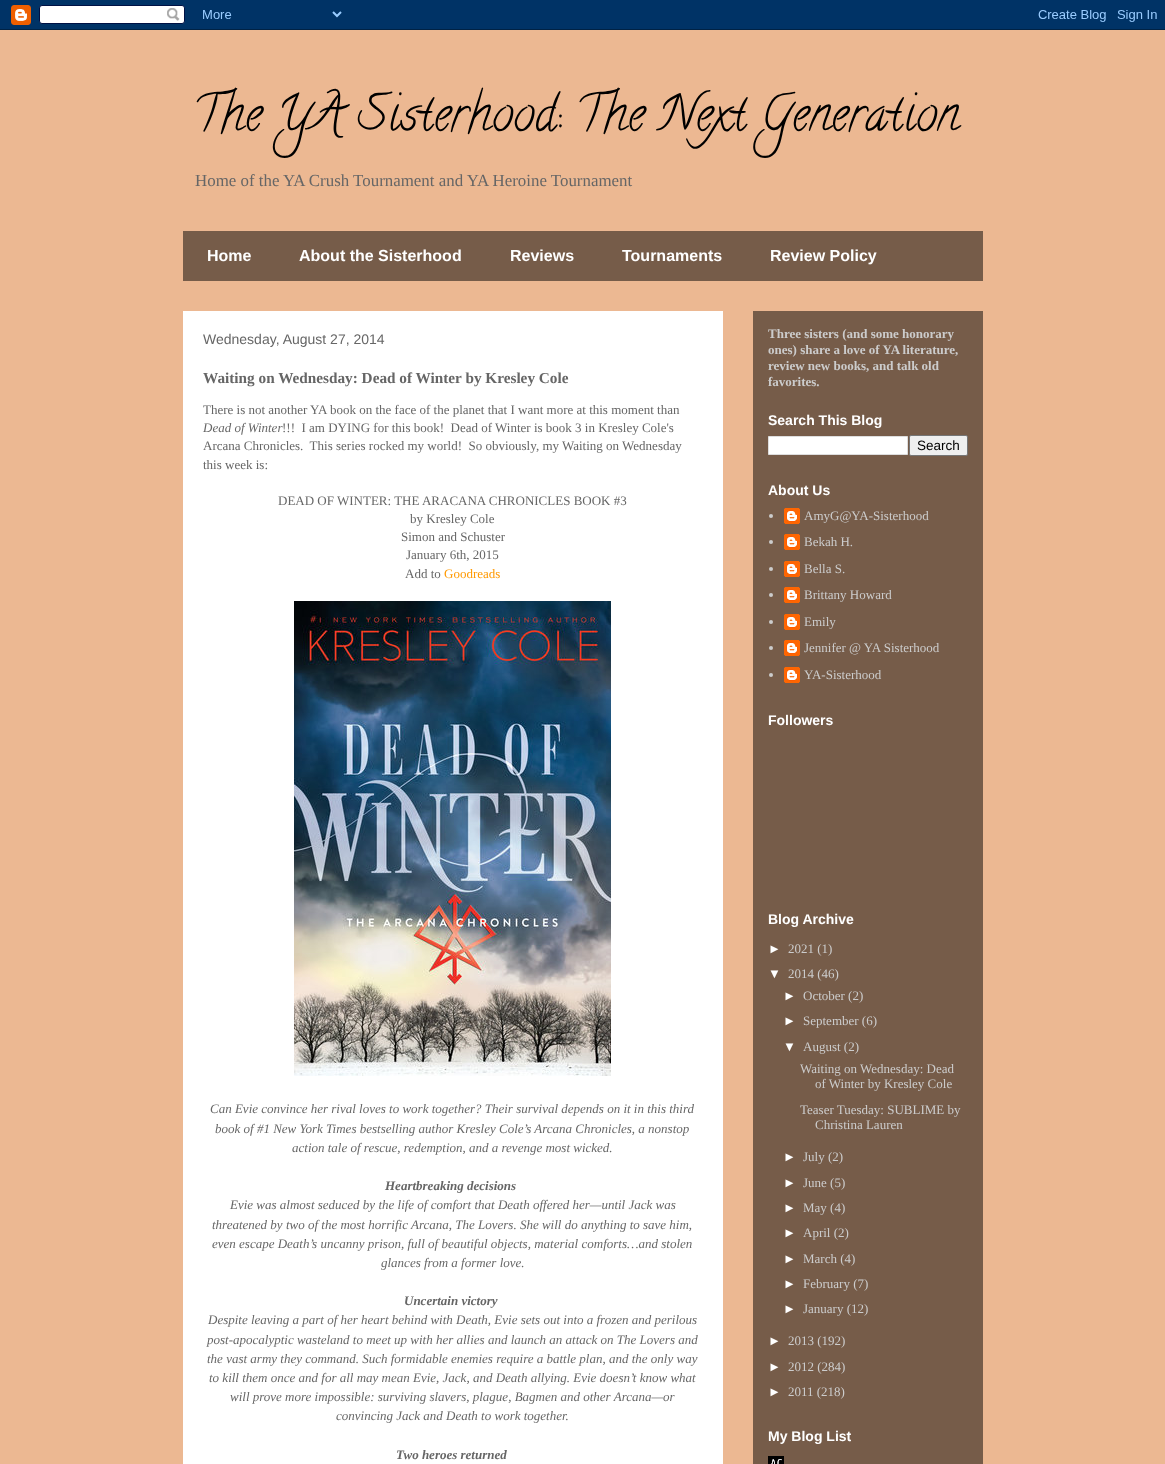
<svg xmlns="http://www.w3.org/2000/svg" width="1165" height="1464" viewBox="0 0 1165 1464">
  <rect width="100%" height="100%" fill="#ecb892"/>
  <image x="0" y="0" width="1165" height="30" href="img/1.png"/>
  <path d="M183 231h800v50H183z" fill="#765c49"/>
  <path d="M753 311h230v1153H753z" fill="#765c49"/>
  <path d="M183 311h540v1153H183z" fill="#fff"/>
  <image x="294" y="601" width="317" height="475" href="img/2.png"/>
  <path d="M768.5 436.5h139v18H768.5z" fill="#fff" stroke="#ddd"/>
  <rect x="909.5" y="435.5" width="58" height="20" rx="1.5" fill="#efefef" stroke="#767676"/>
  <circle cx="771" cy="516" r="2" fill="#ccc"/>
  <image x="784" y="508" width="16" height="16" href="img/3.png"/>
  <circle cx="771" cy="542" r="2" fill="#ccc"/>
  <image x="784" y="534" width="16" height="16" href="img/3.png"/>
  <circle cx="771" cy="569" r="2" fill="#ccc"/>
  <image x="784" y="561" width="16" height="16" href="img/3.png"/>
  <circle cx="771" cy="595" r="2" fill="#ccc"/>
  <image x="784" y="587" width="16" height="16" href="img/3.png"/>
  <circle cx="771" cy="622" r="2" fill="#ccc"/>
  <image x="784" y="614" width="16" height="16" href="img/3.png"/>
  <circle cx="771" cy="648" r="2" fill="#ccc"/>
  <image x="784" y="640" width="16" height="16" href="img/3.png"/>
  <circle cx="771" cy="675" r="2" fill="#ccc"/>
  <image x="784" y="667" width="16" height="16" href="img/3.png"/>
  <image x="768" y="1456" width="16" height="8" href="img/4.png"/>
  <text x="193" y="129" font-family="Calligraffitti" font-size="49" fill="#000">The YA Sisterhood: The Next Generation</text>
  <text x="195" y="186" font-family="Liberation Serif" font-size="16.9" fill="#666">Home of the YA Crush Tournament and YA Heroine Tournament</text>
  <g font-family="Liberation Sans" font-size="16" font-weight="bold" fill="#fff">
    <text x="207" y="261">Home</text>
    <text x="299" y="261">About the Sisterhood</text>
    <text x="510" y="261">Reviews</text>
    <text x="622" y="261">Tournaments</text>
    <text x="770" y="261">Review Policy</text>
  </g>
  <text x="203" y="344" font-family="Liberation Sans" font-size="14" fill="#666">Wednesday, August 27, 2014</text>
  <text x="203" y="383" font-family="Liberation Serif" font-size="15.25" font-weight="bold" fill="#666">Waiting on Wednesday: Dead of Winter by Kresley Cole</text>
  <text x="203" y="414" font-family="Liberation Serif" font-size="13" fill="#666">There is not another YA book on the face of the planet that I want more at this moment than</text>
  <text x="203" y="432" font-family="Liberation Serif" font-size="13" font-style="italic" fill="#666">Dead of Winter</text>
  <g font-family="Liberation Serif" font-size="13" fill="#666">
    <text x="282" y="432" xml:space="preserve">!!!  I am DYING for this book!  Dead of Winter is book 3 in Kresley Cole's</text>
    <text x="203" y="450" xml:space="preserve">Arcana Chronicles.  This series rocked my world!  So obviously, my Waiting on Wednesday</text>
    <text x="203" y="469">this week is:</text>
    <text x="278" y="505">DEAD OF WINTER: THE ARACANA CHRONICLES BOOK #3</text>
    <text x="410" y="523">by Kresley Cole</text>
    <text x="401" y="541">Simon and Schuster</text>
    <text x="406" y="559">January 6th, 2015</text>
    <text x="405" y="578">Add to</text>
  </g>
  <text x="444" y="578" font-family="Liberation Serif" font-size="13" fill="#f90">Goodreads</text>
  <g font-family="Liberation Serif" font-size="13" font-style="italic" fill="#666">
    <text x="210" y="1113">Can Evie convince her rival loves to work together? Their survival depends on it in this third</text>
    <text x="215" y="1133">book of #1 New York Times bestselling author Kresley Cole’s Arcana Chronicles, a nonstop</text>
    <text x="292" y="1152">action tale of rescue, redemption, and a revenge most wicked.</text>
  </g>
  <text x="385" y="1190" font-family="Liberation Serif" font-size="13" font-weight="bold" font-style="italic" fill="#666">Heartbreaking decisions</text>
  <g font-family="Liberation Serif" font-size="13" font-style="italic" fill="#666">
    <text x="230" y="1209">Evie was almost seduced by the life of comfort that Death offered her—until Jack was</text>
    <text x="212" y="1229">threatened by two of the most horrific Arcana, The Lovers. She will do anything to save him,</text>
    <text x="212" y="1248">even escape Death’s uncanny prison, full of beautiful objects, material comforts…and stolen</text>
    <text x="381" y="1267">glances from a former love.</text>
  </g>
  <text x="404" y="1305" font-family="Liberation Serif" font-size="13" font-weight="bold" font-style="italic" fill="#666">Uncertain victory</text>
  <g font-family="Liberation Serif" font-size="13" font-style="italic" fill="#666">
    <text x="208" y="1324">Despite leaving a part of her heart behind with Death, Evie sets out into a frozen and perilous</text>
    <text x="207" y="1344">post-apocalyptic wasteland to meet up with her allies and launch an attack on The Lovers and</text>
    <text x="207" y="1363">the vast army they command. Such formidable enemies require a battle plan, and the only way</text>
    <text x="209" y="1382">to kill them once and for all may mean Evie, Jack, and Death allying. Evie doesn’t know what</text>
    <text x="230" y="1401">will prove more impossible: surviving slavers, plague, Bagmen and other Arcana—or</text>
    <text x="336" y="1420">convincing Jack and Death to work together.</text>
  </g>
  <text x="396" y="1459" font-family="Liberation Serif" font-size="13" font-weight="bold" font-style="italic" fill="#666">Two heroes returned</text>
  <g font-family="Liberation Serif" font-size="13" font-weight="bold" fill="#ccc">
    <text x="768" y="338">Three sisters (and some honorary</text>
    <text x="768" y="354">ones) share a love of YA literature,</text>
    <text x="768" y="370">review new books, and talk old</text>
    <text x="768" y="386">favorites.</text>
  </g>
  <text x="768" y="425" font-family="Liberation Sans" font-size="14" font-weight="bold" fill="#fff">Search This Blog</text>
  <text x="917" y="450" font-family="Liberation Sans" font-size="13.5" fill="#000">Search</text>
  <text x="768" y="495" font-family="Liberation Sans" font-size="14" font-weight="bold" fill="#fff">About Us</text>
  <g font-family="Liberation Serif" font-size="13" fill="#ccc">
    <text x="804" y="520">AmyG@YA-Sisterhood</text>
    <text x="804" y="546">Bekah H.</text>
    <text x="804" y="573">Bella S.</text>
    <text x="804" y="599">Brittany Howard</text>
    <text x="804" y="626">Emily</text>
    <text x="804" y="652">Jennifer @ YA Sisterhood</text>
    <text x="804" y="679">YA-Sisterhood</text>
  </g>
  <g font-family="Liberation Sans" font-size="14" font-weight="bold" fill="#fff">
    <text x="768" y="725">Followers</text>
    <text x="768" y="924">Blog Archive</text>
  </g>
  <text x="768" y="953" font-family="Liberation Sans" font-size="13" fill="#fff">►</text>
  <text x="788" y="953" font-family="Liberation Serif" font-size="13" fill="#ccc">2021 (1)</text>
  <text x="768" y="978" font-family="Liberation Sans" font-size="13" fill="#fff">▼</text>
  <text x="788" y="978" font-family="Liberation Serif" font-size="13" fill="#ccc">2014 (46)</text>
  <text x="783" y="1000" font-family="Liberation Sans" font-size="13" fill="#fff">►</text>
  <text x="803" y="1000" font-family="Liberation Serif" font-size="13" fill="#ccc">October (2)</text>
  <text x="783" y="1025" font-family="Liberation Sans" font-size="13" fill="#fff">►</text>
  <text x="803" y="1025" font-family="Liberation Serif" font-size="13" fill="#ccc">September (6)</text>
  <text x="783" y="1051" font-family="Liberation Sans" font-size="13" fill="#fff">▼</text>
  <g font-family="Liberation Serif" font-size="13" fill="#ccc">
    <text x="803" y="1051">August (2)</text>
    <text x="800" y="1073">Waiting on Wednesday: Dead</text>
    <text x="815" y="1088">of Winter by Kresley Cole</text>
    <text x="800" y="1114">Teaser Tuesday: SUBLIME by</text>
    <text x="815" y="1129">Christina Lauren</text>
  </g>
  <text x="783" y="1161" font-family="Liberation Sans" font-size="13" fill="#fff">►</text>
  <text x="803" y="1161" font-family="Liberation Serif" font-size="13" fill="#ccc">July (2)</text>
  <text x="783" y="1187" font-family="Liberation Sans" font-size="13" fill="#fff">►</text>
  <text x="803" y="1187" font-family="Liberation Serif" font-size="13" fill="#ccc">June (5)</text>
  <text x="783" y="1212" font-family="Liberation Sans" font-size="13" fill="#fff">►</text>
  <text x="803" y="1212" font-family="Liberation Serif" font-size="13" fill="#ccc">May (4)</text>
  <text x="783" y="1237" font-family="Liberation Sans" font-size="13" fill="#fff">►</text>
  <text x="803" y="1237" font-family="Liberation Serif" font-size="13" fill="#ccc">April (2)</text>
  <text x="783" y="1263" font-family="Liberation Sans" font-size="13" fill="#fff">►</text>
  <text x="803" y="1263" font-family="Liberation Serif" font-size="13" fill="#ccc">March (4)</text>
  <text x="783" y="1288" font-family="Liberation Sans" font-size="13" fill="#fff">►</text>
  <text x="803" y="1288" font-family="Liberation Serif" font-size="13" fill="#ccc">February (7)</text>
  <text x="783" y="1313" font-family="Liberation Sans" font-size="13" fill="#fff">►</text>
  <text x="803" y="1313" font-family="Liberation Serif" font-size="13" fill="#ccc">January (12)</text>
  <text x="768" y="1345" font-family="Liberation Sans" font-size="13" fill="#fff">►</text>
  <text x="788" y="1345" font-family="Liberation Serif" font-size="13" fill="#ccc">2013 (192)</text>
  <text x="768" y="1371" font-family="Liberation Sans" font-size="13" fill="#fff">►</text>
  <text x="788" y="1371" font-family="Liberation Serif" font-size="13" fill="#ccc">2012 (284)</text>
  <text x="768" y="1396" font-family="Liberation Sans" font-size="13" fill="#fff">►</text>
  <text x="788" y="1396" font-family="Liberation Serif" font-size="13" fill="#ccc">2011 (218)</text>
  <text x="768" y="1441" font-family="Liberation Sans" font-size="14" font-weight="bold" fill="#fff">My Blog List</text>
</svg>
